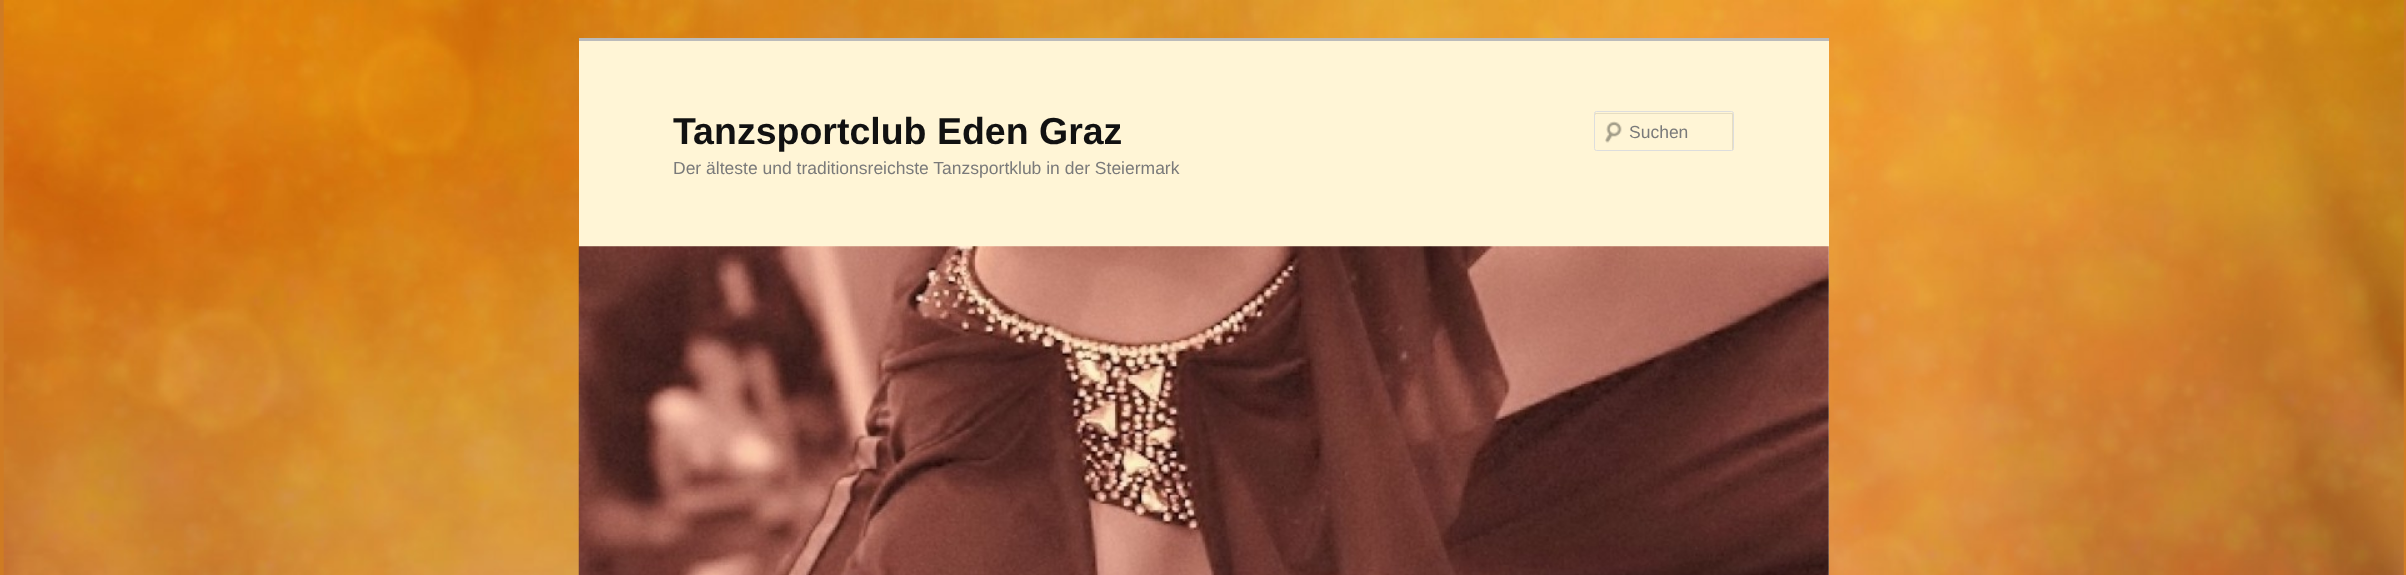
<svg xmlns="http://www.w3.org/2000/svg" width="2406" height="575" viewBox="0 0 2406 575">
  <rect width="100%" height="100%" fill="#cf7b23"/>
  <image x="3" y="0" width="2401" height="575" href="img/1.png"/>
  <path d="M579 41h1250v534H579z" fill="#fff5d6"/>
  <path d="M579 38h1250v3H579z" fill="#bbb"/>
  <image x="1605" y="121" width="17" height="22" href="img/2.png"/>
  <path d="M1596 114H1731C1732 114 1732 114 1732 115V150C1733 150 1733 150 1733 149V114C1733 113 1733 113 1732 113H1596C1595 113 1595 113 1595 114V115Z" fill="#e6ddc1"/>
  <rect x="1594.5" y="111.5" width="139" height="39" rx="2" fill="none" stroke="#ddd"/>
  <image x="578" y="246" width="1251" height="329" href="img/3.png"/>
  <text x="673" y="144" font-family="Liberation Sans" font-size="37.5" font-weight="bold" fill="#111">Tanzsportclub Eden Graz</text>
  <g font-family="Liberation Sans" font-size="17.5" fill="#7a7a7a">
    <text x="673" y="174">Der älteste und traditionsreichste Tanzsportklub in der Steiermark</text>
    <text x="1629" y="138">Suchen</text>
  </g>
</svg>
